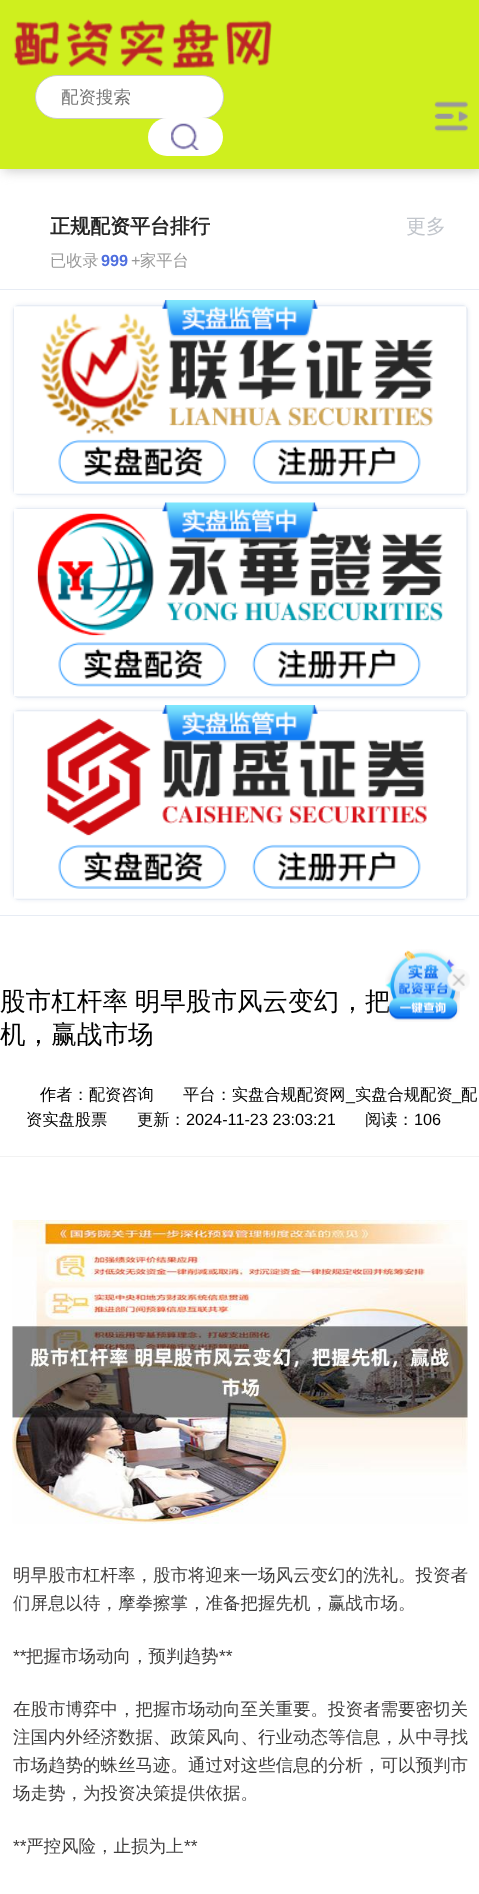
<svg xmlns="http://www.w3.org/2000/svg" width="479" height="1894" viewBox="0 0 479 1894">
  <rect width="100%" height="100%" fill="#fff"/>
  <path d="M3 3h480v168H3z" fill="#ccc" filter="blur(6px)"/>
  <path d="M0 0h479v169H0z" fill="#cfef1e"/>
  <image x="13" y="18" width="259" height="51" href="img/1.png"/>
  <rect x="35.5" y="75.5" width="188" height="43" rx="21.5" fill="#fff" stroke="#ccc"/>
  <rect x="148" y="118" width="75" height="38" rx="19" fill="#fff"/>
  <image x="171" y="123" width="28" height="27" href="img/2.png"/>
  <image x="434" y="101" width="35" height="31" href="img/3.png"/>
  <path d="M0 289h479v1H0z" fill="#e7ecf4"/>
  <path d="M0 915h479v1H0z" fill="#e7ecf4"/>
  <rect x="13" y="305" width="455" height="190" rx="6" fill="#e7ecf4" filter="blur(2px)"/>
  <rect x="13.5" y="305.5" width="454" height="189" rx="5.5" fill="none" stroke="#e7ecf4"/>
  <image x="14" y="306" width="452" height="188" href="img/5.png"/>
  <image x="162" y="300" width="156" height="38" href="img/4.png"/>
  <rect x="13" y="508" width="455" height="190" rx="6" fill="#e7ecf4" filter="blur(2px)"/>
  <rect x="13.5" y="508.5" width="454" height="189" rx="5.5" fill="none" stroke="#e7ecf4"/>
  <image x="14" y="509" width="452" height="187" href="img/7.png"/>
  <image x="162" y="502" width="156" height="38" href="img/6.png"/>
  <rect x="13" y="710" width="455" height="190" rx="6" fill="#e7ecf4" filter="blur(2px)"/>
  <rect x="13.5" y="710.5" width="454" height="189" rx="5.5" fill="none" stroke="#e7ecf4"/>
  <image x="14" y="711" width="452" height="188" href="img/9.png"/>
  <image x="162" y="705" width="156" height="38" href="img/8.png"/>
  <path d="M0 1156h479v1H0z" fill="#f2f2f2"/>
  <image x="12" y="1220" width="456" height="304" href="img/12.png"/>
  <text x="61" y="103" font-family="WenQuanYi Zen Hei" font-size="17.5" font-weight="500" fill="#757575">配资搜索</text>
  <text x="50" y="233" font-family="WenQuanYi Zen Hei" font-size="20" font-weight="bold" fill="#262626">正规配资平台排行</text>
  <text x="50" y="266" font-family="WenQuanYi Zen Hei" font-size="16.25" font-weight="500" fill="#999">已收录</text>
  <text x="101" y="266" font-family="Liberation Sans" font-size="16.25" font-weight="bold" fill="#4e6edf">999</text>
  <text x="131" y="266" font-family="Liberation Sans" font-size="16.25" fill="#999">+</text>
  <text x="140" y="266" font-family="WenQuanYi Zen Hei" font-size="16.25" font-weight="500" fill="#999">家平台</text>
  <text x="406" y="233" font-family="WenQuanYi Zen Hei" font-size="20" font-weight="500" fill="#c2c6cc">更多</text>
  <text x="0" y="1010" word-spacing="-1" font-family="WenQuanYi Zen Hei" font-size="25.6" font-weight="500" fill="#000">股市杠杆率 明早股市风云变幻，把</text>
  <image x="385" y="949" width="75" height="73" href="img/10.png"/>
  <image x="447" y="969" width="23" height="23" href="img/11.png"/>
  <text x="0" y="1043" font-family="WenQuanYi Zen Hei" font-size="25.6" font-weight="500" fill="#000">机，赢战市场</text>
  <g font-family="WenQuanYi Zen Hei" font-size="16.25" font-weight="500" fill="#000">
    <text x="40" y="1100">作者：配资咨询</text>
    <text x="183" y="1100">平台：实盘合规配资网</text>
  </g>
  <text x="346" y="1100" font-family="Liberation Sans" font-size="16.25" fill="#000">_</text>
  <text x="355" y="1100" font-family="WenQuanYi Zen Hei" font-size="16.25" font-weight="500" fill="#000">实盘合规配资</text>
  <text x="452" y="1100" font-family="Liberation Sans" font-size="16.25" fill="#000">_</text>
  <g font-family="WenQuanYi Zen Hei" font-size="16.25" font-weight="500" fill="#000">
    <text x="461" y="1100">配</text>
    <text x="26" y="1125">资实盘股票</text>
    <text x="137" y="1125">更新：</text>
  </g>
  <text x="186" y="1125" font-family="Liberation Sans" font-size="16.25" fill="#000">2024-11-23 23:03:21</text>
  <text x="365" y="1125" font-family="WenQuanYi Zen Hei" font-size="16.25" font-weight="500" fill="#000">阅读：</text>
  <text x="414" y="1125" font-family="Liberation Sans" font-size="16.25" fill="#000">106</text>
  <g font-family="WenQuanYi Zen Hei" font-size="17.5" font-weight="500" fill="#3e3d3d">
    <text x="13" y="1581">明早股市杠杆率，股市将迎来一场风云变幻的洗礼。投资者</text>
    <text x="13" y="1609">们屏息以待，摩拳擦掌，准备把握先机，赢战市场。</text>
  </g>
  <text x="13" y="1662" font-family="Liberation Sans" font-size="17.5" fill="#3e3d3d">**</text>
  <text x="26" y="1662" font-family="WenQuanYi Zen Hei" font-size="17.5" font-weight="500" fill="#3e3d3d">把握市场动向，预判趋势</text>
  <text x="219" y="1662" font-family="Liberation Sans" font-size="17.5" fill="#3e3d3d">**</text>
  <g font-family="WenQuanYi Zen Hei" font-size="17.5" font-weight="500" fill="#3e3d3d">
    <text x="13" y="1715">在股市博弈中，把握市场动向至关重要。投资者需要密切关</text>
    <text x="13" y="1743">注国内外经济数据、政策风向、行业动态等信息，从中寻找</text>
    <text x="13" y="1771">市场趋势的蛛丝马迹。通过对这些信息的分析，可以预判市</text>
    <text x="13" y="1799">场走势，为投资决策提供依据。</text>
  </g>
  <text x="13" y="1852" font-family="Liberation Sans" font-size="17.5" fill="#3e3d3d">**</text>
  <text x="26" y="1852" font-family="WenQuanYi Zen Hei" font-size="17.5" font-weight="500" fill="#3e3d3d">严控风险，止损为上</text>
  <text x="184" y="1852" font-family="Liberation Sans" font-size="17.5" fill="#3e3d3d">**</text>
</svg>
